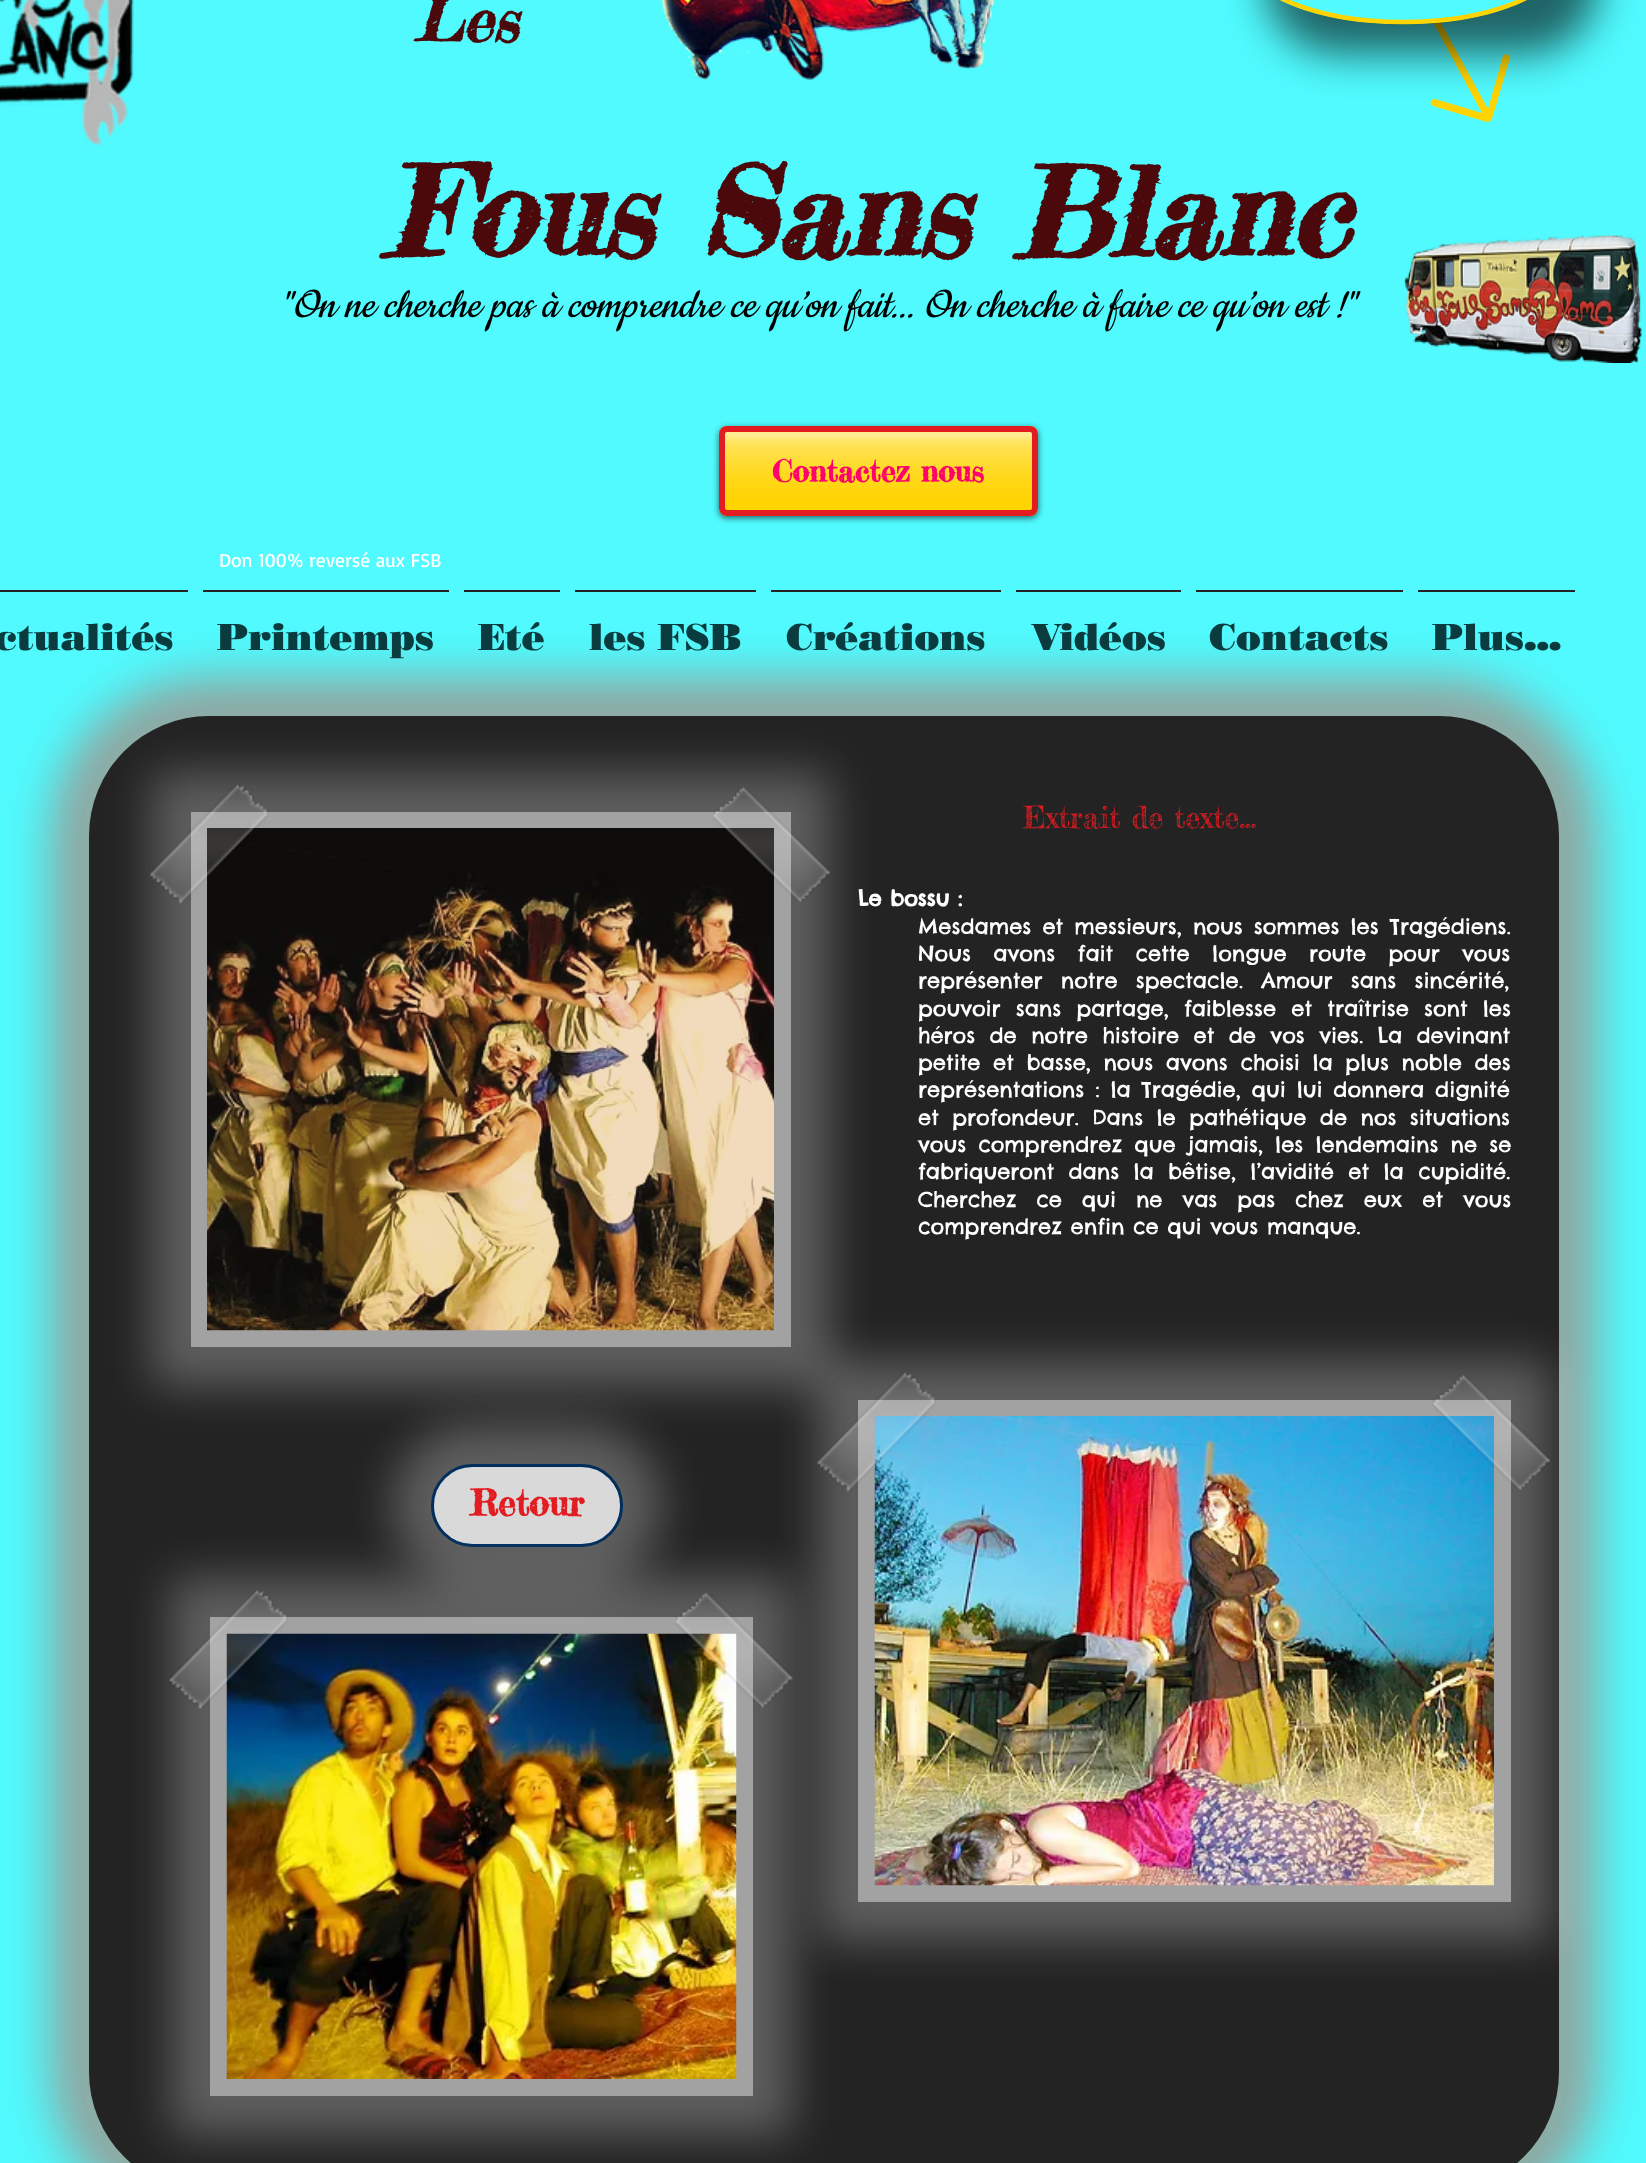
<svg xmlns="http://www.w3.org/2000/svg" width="1646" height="2163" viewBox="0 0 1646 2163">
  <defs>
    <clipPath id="clip1"><path d="M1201 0H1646V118H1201ZM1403-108C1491.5-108 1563-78.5 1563-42C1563-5.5 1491.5 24 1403 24C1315 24 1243.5-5.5 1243.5-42C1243.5-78.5 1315-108 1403-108Z" clip-rule="evenodd"/></clipPath>
    <clipPath id="clip2"><path d="M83 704H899V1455H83ZM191 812H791V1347H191Z" clip-rule="evenodd"/></clipPath>
    <clipPath id="clip3"><path d="M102 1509H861V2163H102ZM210 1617H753V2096H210Z" clip-rule="evenodd"/></clipPath>
    <clipPath id="clip4"><path d="M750 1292H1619V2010H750ZM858 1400H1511V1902H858Z" clip-rule="evenodd"/></clipPath>
  </defs>
  <rect width="100%" height="100%" fill="#50fafe"/>
  <image x="0" y="0" width="134" height="146" href="img/1.png"/>
  <image x="661" y="0" width="408" height="80" href="img/2.png"/>
  <path d="M1435 20C1433 21 1433 23 1434 24L1482 113L1435 99C1433 99 1431 100 1431 101C1430 103 1431 105 1433 106L1487 122C1489 122 1491 121 1492 119L1510 58C1510 57 1509 55 1507 54C1506 54 1504 55 1503 56L1488 109L1440 21C1439 19 1437 19 1435 20Z" fill="#ffd400"/>
  <g clip-path="url(#clip1)">
    <rect x="1265" y="-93" width="334" height="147" rx="73.5" fill="#00000099" filter="blur(21px)"/>
  </g>
  <path d="M1403-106C1490-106 1561-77 1561-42C1561-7 1490 22 1403 22C1316.5 22 1246-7 1246-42C1246-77 1316.5-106 1403-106Z" fill="none" stroke="#ffd400" stroke-width="4.5"/>
  <image x="1404" y="235" width="238" height="128" href="img/3.png"/>
  <rect x="719" y="428" width="319" height="90" rx="8" fill="#00000099" filter="blur(3px)"/>
  <rect x="719" y="426" width="319" height="90" rx="8" fill="#ffd400"/>
  <image x="718" y="432" width="320" height="68" href="img/4.png"/>
  <rect x="722" y="429" width="313" height="84" rx="5" fill="none" stroke="#e21c21" stroke-width="6"/>
  <path d="M0 590h188v2H0z" fill="#232323"/>
  <path d="M203 590h246v2H203z" fill="#232323"/>
  <path d="M464 590h96v2H464z" fill="#232323"/>
  <path d="M575 590h181v2H575z" fill="#232323"/>
  <path d="M771 590h230v2H771z" fill="#232323"/>
  <path d="M1016 590h165v2H1016z" fill="#232323"/>
  <path d="M1196 590h207v2H1196z" fill="#232323"/>
  <path d="M1418 590h157v2H1418z" fill="#232323"/>
  <rect x="50" y="677" width="1548" height="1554" rx="159" fill="#ff15005c" filter="blur(22.5px)"/>
  <rect x="89" y="716" width="1470" height="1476" rx="120" fill="#232323"/>
  <g clip-path="url(#clip2)">
    <path d="M152 773h678v613H152z" fill="#ffffff45" filter="blur(22.5px)"/>
  </g>
  <path d="M199.5 820.5h583v518H199.5z" fill="none" stroke="#ffffff94" stroke-width="17"/>
  <image x="207" y="828" width="567" height="503" href="img/5.png"/>
  <image x="150" y="784" width="119" height="120" href="img/6.png"/>
  <image x="713" y="787" width="117" height="115" href="img/7.png"/>
  <rect x="392" y="1425" width="270" height="161" rx="80.5" fill="#ffffff45" filter="blur(22.5px)"/>
  <rect x="432.5" y="1465.5" width="189" height="80" rx="40" fill="#d9d9d9" stroke="#002e5d" stroke-width="3"/>
  <g clip-path="url(#clip3)">
    <path d="M171 1578h621v557H171z" fill="#ffffff45" filter="blur(22.5px)"/>
  </g>
  <path d="M218.5 1625.5h526v462H218.5z" fill="none" stroke="#ffffff94" stroke-width="17"/>
  <image x="226" y="1633" width="511" height="446" href="img/11.png"/>
  <image x="675" y="1593" width="118" height="115" href="img/13.png"/>
  <g clip-path="url(#clip4)">
    <path d="M819 1361h731v580H819z" fill="#ffffff45" filter="blur(22.5px)"/>
  </g>
  <path d="M866.5 1408.5h636v485H866.5z" fill="none" stroke="#ffffff94" stroke-width="17"/>
  <image x="874" y="1416" width="620" height="470" href="img/8.png"/>
  <image x="817" y="1372" width="119" height="120" href="img/9.png"/>
  <image x="1432" y="1375" width="118" height="115" href="img/10.png"/>
  <image x="169" y="1590" width="119" height="119" href="img/12.png"/>
  <text x="414" y="42" font-family="Fredericka the Great" font-size="60" font-weight="bold" font-style="italic" fill="#4b090b">Les</text>
  <text x="386" y="257" font-family="Fredericka the Great" font-size="123" font-weight="bold" font-style="italic" fill="#4b090b">Fous Sans Blanc</text>
  <text x="281" y="317" font-family="Cookie" font-size="45" font-style="italic" fill="#000">"On ne cherche pas à comprendre ce qu’on fait... On cherche à faire ce qu’on est !"</text>
  <text x="772" y="482" font-family="Fredericka the Great" font-size="30" font-weight="bold" fill="#ff006e">Contactez nous</text>
  <text x="219" y="567" font-family="Basic" font-size="19.5" fill="#fff">Don 100% reversé aux FSB</text>
  <g font-family="'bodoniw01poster'" font-size="37.5" font-weight="900" fill="#0a3b3e">
    <text x="-6" y="650">ctualités</text>
    <text x="217" y="650">Printemps</text>
    <text x="478" y="650">Eté</text>
    <text x="589" y="650">les FSB</text>
    <text x="786" y="650">Créations</text>
    <text x="1031" y="650">Vidéos</text>
    <text x="1209" y="650">Contacts</text>
    <text x="1432" y="650">Plus...</text>
  </g>
  <text x="1023" y="828" font-family="Fredericka the Great" font-size="30" fill="#e21c21">Extrait de texte...</text>
  <text x="858" y="906" font-family="Chelsea Market" font-size="21" font-weight="bold" fill="#fff">Le bossu :</text>
  <g font-family="Chelsea Market" font-size="21" fill="#fff">
    <text x="918" y="934" word-spacing="2.5">Mesdames et messieurs, nous sommes les Tragédiens.</text>
    <text x="918" y="961" word-spacing="13.75">Nous avons fait cette longue route pour vous</text>
    <text x="918" y="988" word-spacing="9.5">représenter notre spectacle. Amour sans sincérité,</text>
    <text x="918" y="1016" word-spacing="6.5">pouvoir sans partage, faiblesse et traîtrise sont les</text>
    <text x="918" y="1043" word-spacing="5.75">héros de notre histoire et de vos vies. La devinant</text>
    <text x="918" y="1070" word-spacing="4">petite et basse, nous avons choisi la plus noble des</text>
    <text x="918" y="1097" word-spacing="2.25">représentations : la Tragédie, qui lui donnera dignité</text>
    <text x="918" y="1125" word-spacing="4.75">et profondeur. Dans le pathétique de nos situations</text>
    <text x="918" y="1152" word-spacing="3.5">vous comprendrez que jamais, les lendemains ne se</text>
    <text x="918" y="1179" word-spacing="5.75">fabriqueront dans la bêtise, l’avidité et la cupidité.</text>
    <text x="918" y="1207" word-spacing="11.25">Cherchez ce qui ne vas pas chez eux et vous</text>
    <text x="918" y="1234">comprendrez enfin ce qui vous manque.</text>
  </g>
  <text x="470" y="1516" font-family="Fredericka the Great" font-size="36" font-weight="bold" fill="#e21c21">Retour</text>
</svg>
